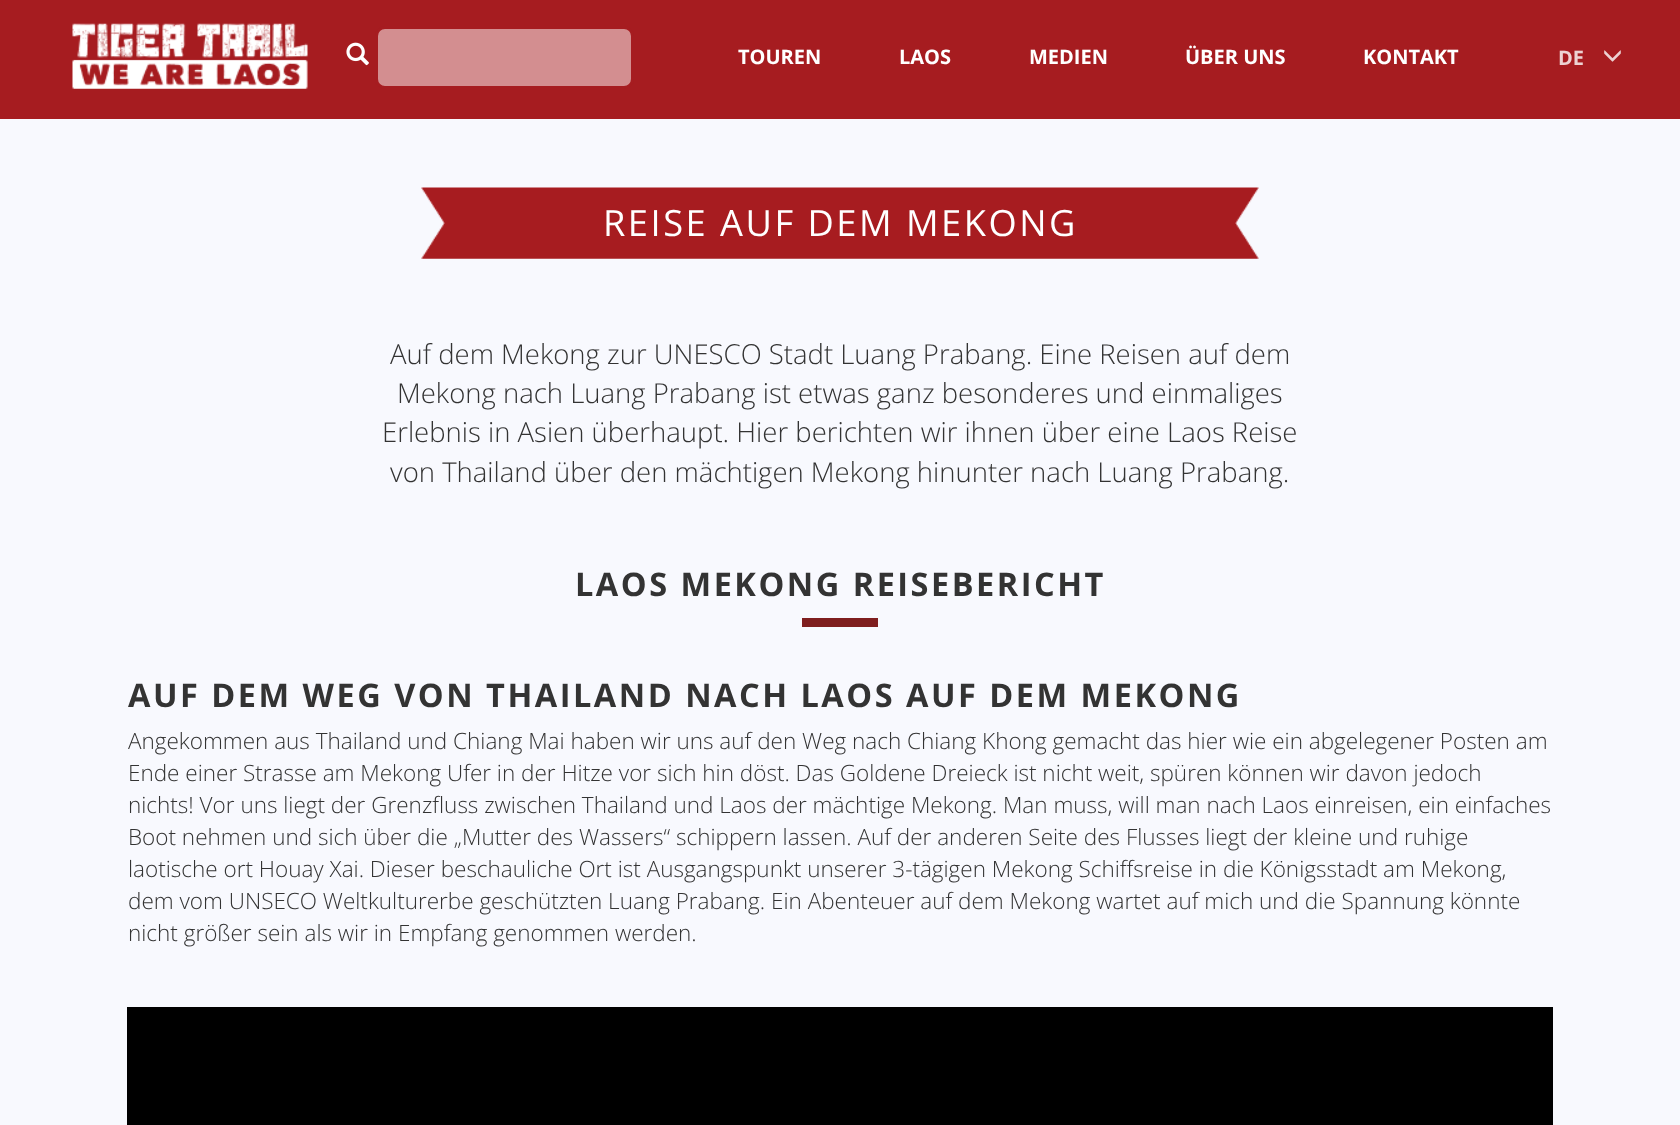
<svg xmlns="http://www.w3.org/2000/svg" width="1680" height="1125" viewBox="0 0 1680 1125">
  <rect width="100%" height="100%" fill="#f8f9fe"/>
  <path d="M0 0h1680v119H0z" fill="#a61c20"/>
  <image x="72" y="23" width="236" height="66" href="img/1.png"/>
  <image x="346" y="42" width="23" height="24" href="img/2.png"/>
  <rect x="376.5" y="27.5" width="256" height="60" rx="8.5" fill="#d38e90" stroke="#a61c20" stroke-width="3"/>
  <image x="1604" y="50" width="17" height="12" href="img/3.png"/>
  <image x="421" y="187" width="838" height="72" href="img/4.png"/>
  <path d="M802 618h76v9H802z" fill="#7f1e1f"/>
  <path d="M127 1007h1426v118H127z" fill="#000"/>
  <g font-family="Open Sans" font-size="20" font-weight="bold" fill="#fff">
    <text x="738" y="64">TOUREN</text>
    <text x="899" y="64">LAOS</text>
    <text x="1029" y="64">MEDIEN</text>
    <text x="1185" y="64">ÜBER UNS</text>
    <text x="1363" y="64">KONTAKT</text>
  </g>
  <text x="1558" y="65" font-family="Open Sans" font-size="20" font-weight="bold" fill="#edd2d2">DE</text>
  <text x="603" y="236" font-family="Open Sans" font-size="36.25" letter-spacing="2.5" fill="#fff">REISE AUF DEM MEKONG</text>
  <g font-family="Open Sans" font-size="27.5" font-weight="300" fill="#333">
    <text x="390" y="364">Auf dem Mekong zur UNESCO Stadt Luang Prabang. Eine Reisen auf dem</text>
    <text x="397" y="403">Mekong nach Luang Prabang ist etwas ganz besonderes und einmaliges</text>
    <text x="382" y="442">Erlebnis in Asien überhaupt. Hier berichten wir ihnen über eine Laos Reise</text>
    <text x="390" y="482">von Thailand über den mächtigen Mekong hinunter nach Luang Prabang.</text>
  </g>
  <g font-family="Open Sans" font-size="32.5" font-weight="bold" letter-spacing="2.5" fill="#333">
    <text x="575" y="596">LAOS MEKONG REISEBERICHT</text>
    <text x="128" y="707">AUF DEM WEG VON THAILAND NACH LAOS AUF DEM MEKONG</text>
  </g>
  <g font-family="Open Sans" font-size="22.5" font-weight="300" fill="#333">
    <text x="128" y="749">Angekommen aus Thailand und Chiang Mai haben wir uns auf den Weg nach Chiang Khong gemacht das hier wie ein abgelegener Posten am</text>
    <text x="128" y="781">Ende einer Strasse am Mekong Ufer in der Hitze vor sich hin döst. Das Goldene Dreieck ist nicht weit, spüren können wir davon jedoch</text>
    <text x="128" y="813">nichts! Vor uns liegt der Grenzfluss zwischen Thailand und Laos der mächtige Mekong. Man muss, will man nach Laos einreisen, ein einfaches</text>
    <text x="128" y="845">Boot nehmen und sich über die „Mutter des Wassers“ schippern lassen. Auf der anderen Seite des Flusses liegt der kleine und ruhige</text>
    <text x="128" y="877">laotische ort Houay Xai. Dieser beschauliche Ort ist Ausgangspunkt unserer 3-tägigen Mekong Schiffsreise in die Königsstadt am Mekong,</text>
    <text x="128" y="909">dem vom UNSECO Weltkulturerbe geschützten Luang Prabang. Ein Abenteuer auf dem Mekong wartet auf mich und die Spannung könnte</text>
    <text x="128" y="941">nicht größer sein als wir in Empfang genommen werden.</text>
  </g>
</svg>
